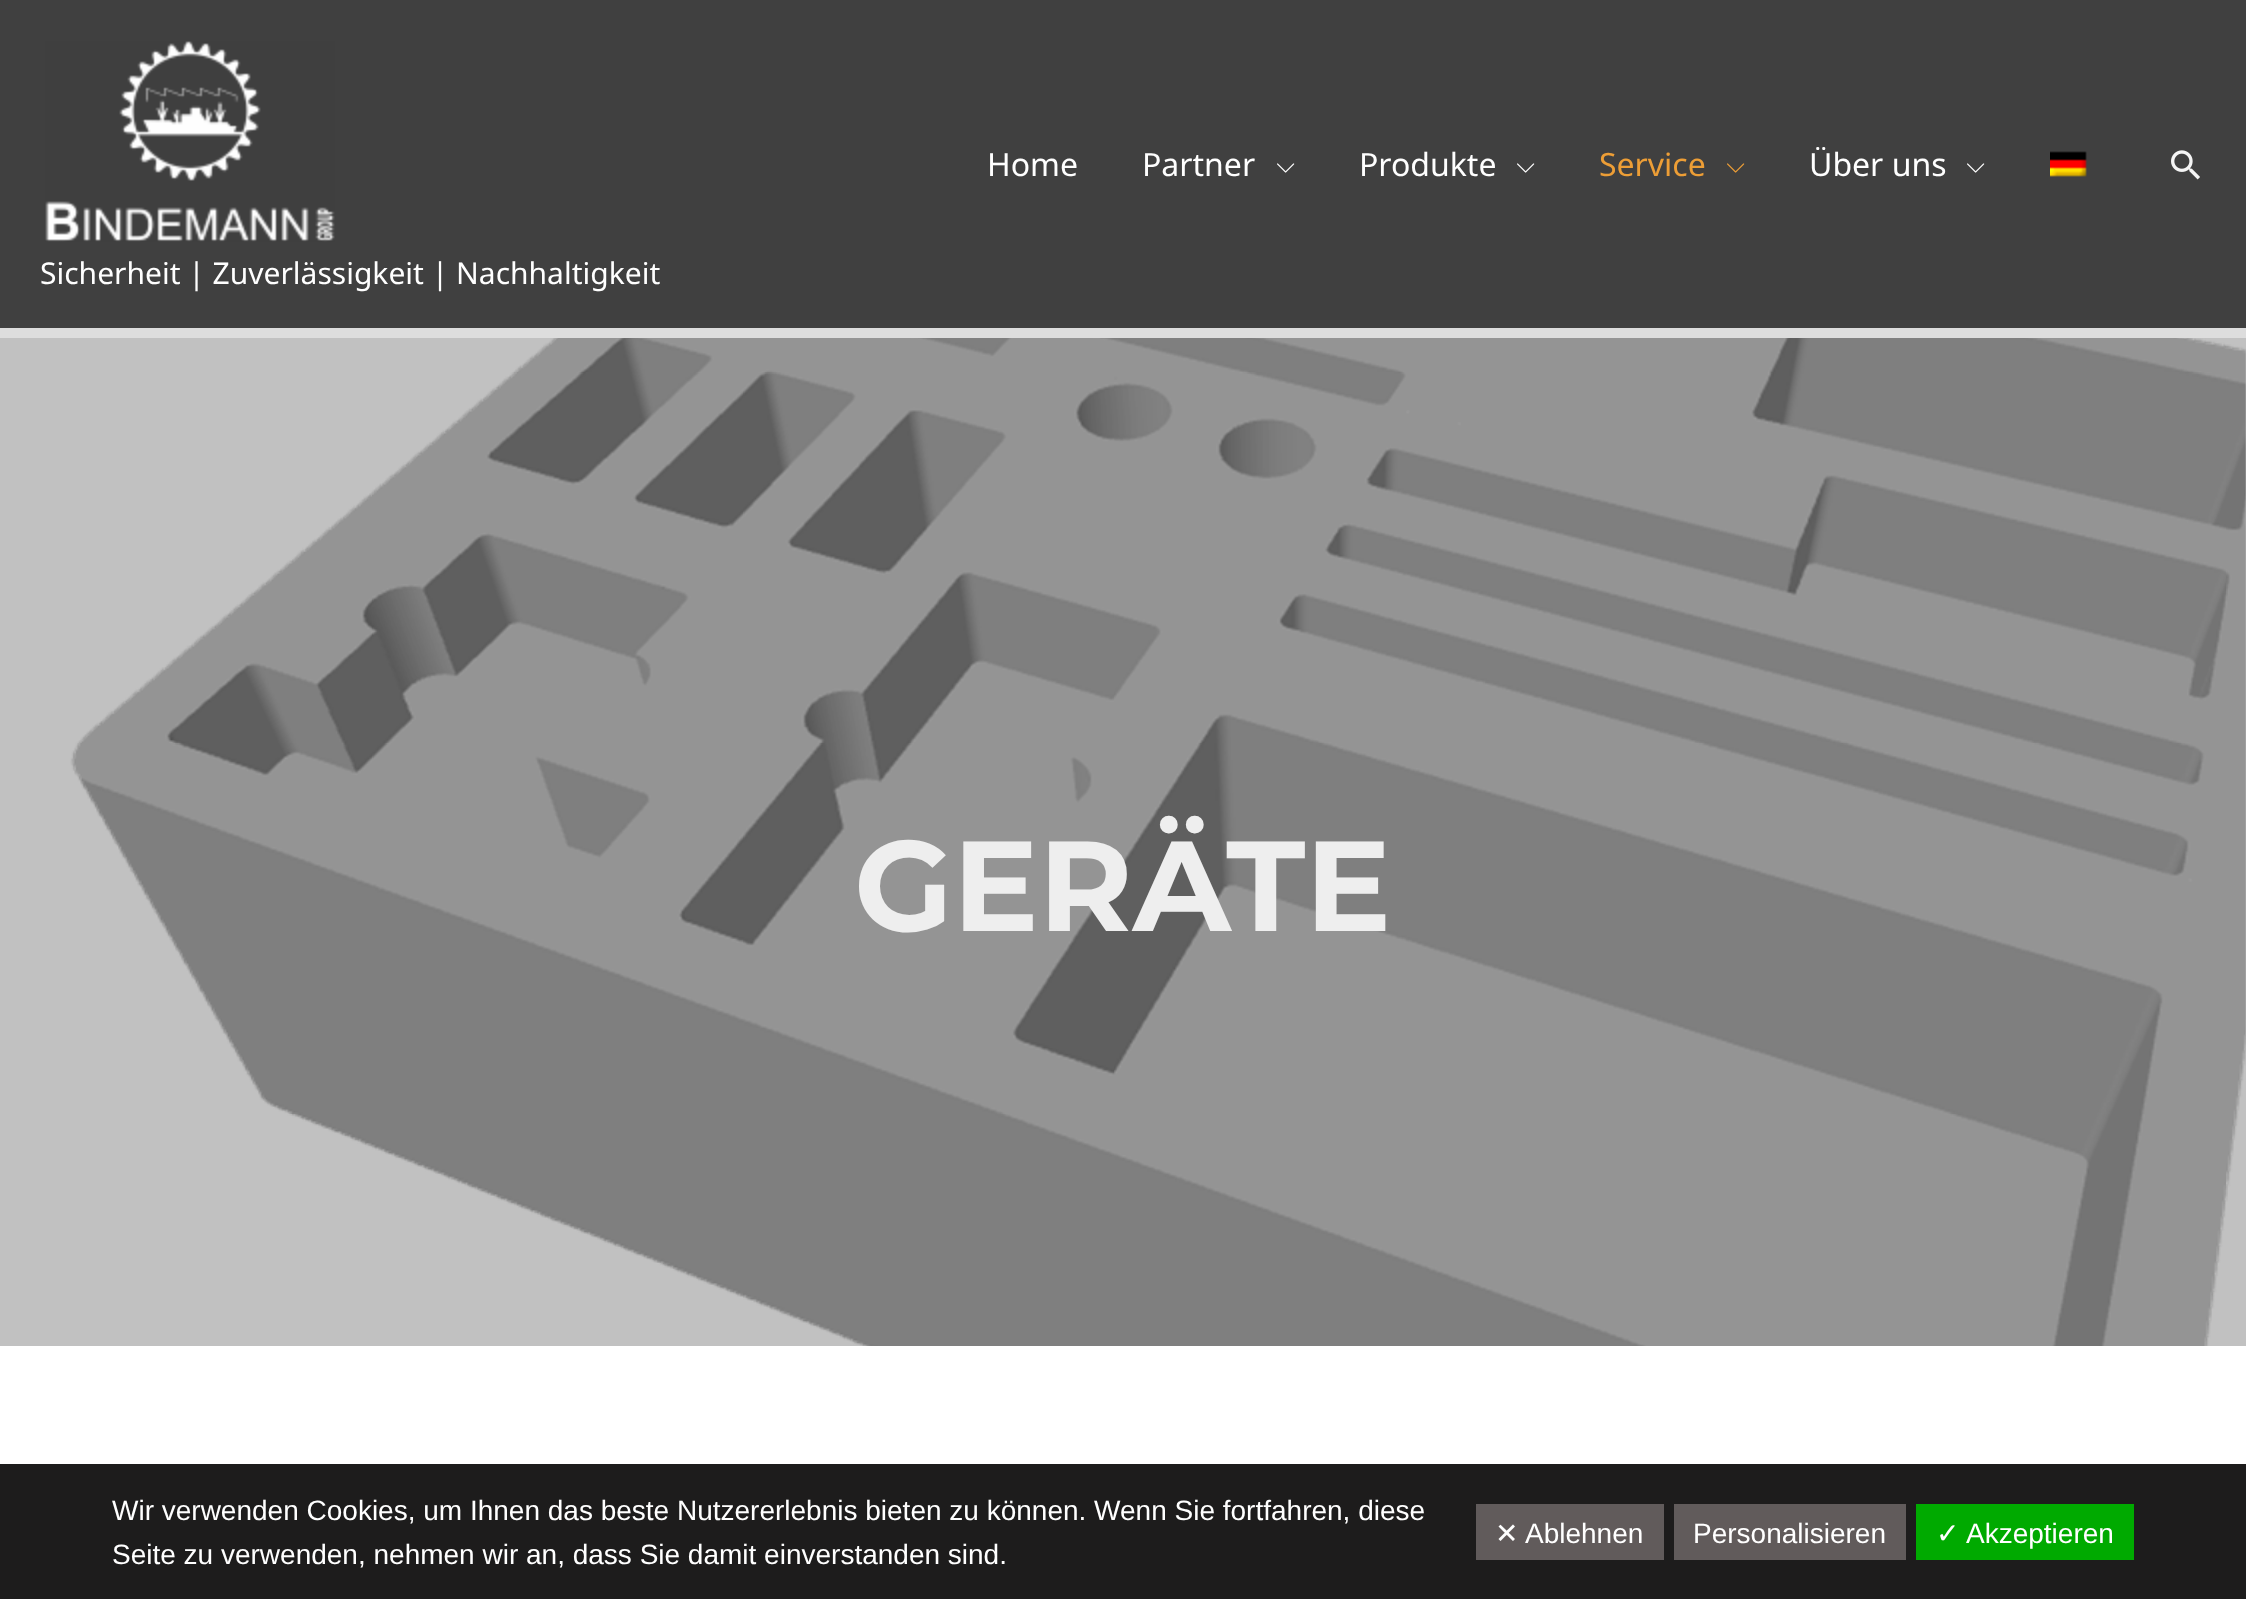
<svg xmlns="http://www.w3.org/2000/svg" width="2246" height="1599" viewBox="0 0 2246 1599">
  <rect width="100%" height="100%" fill="#fff"/>
  <path d="M0 338h2246v1008H0z" fill="#c1c1c1"/>
  <path d="M0 0h2246v328H0z" fill="#404040"/>
  <path d="M0 328h2246v10H0z" fill="#ddd"/>
  <image x="1277" y="163" width="18" height="10" href="img/1.png"/>
  <image x="1517" y="163" width="18" height="10" href="img/1.png"/>
  <image x="1727" y="163" width="18" height="10" href="img/2.png"/>
  <image x="1967" y="163" width="18" height="10" href="img/1.png"/>
  <image x="2050" y="151" width="37" height="26" href="img/3.png"/>
  <image x="2171" y="150" width="29" height="30" href="img/4.png"/>
  <image x="45" y="41" width="290" height="201" href="img/5.png"/>
  <image x="70" y="338" width="2176" height="1008" href="img/6.png"/>
  <path d="M0 1464h2246v135H0z" fill="#1d1c1c"/>
  <path d="M1476 1504h188v56H1476z" fill="#615b5b"/>
  <path d="M1674 1504h232v56H1674z" fill="#615b5b"/>
  <path d="M1916 1504h218v56H1916z" fill="#0a0"/>
  <g font-family="Noto Sans" font-size="32" fill="#fff">
    <text x="987" y="176">Home</text>
    <text x="1142" y="176">Partner</text>
    <text x="1359" y="176">Produkte</text>
  </g>
  <text x="1599" y="176" font-family="Noto Sans" font-size="32" fill="#ed9e36">Service</text>
  <text x="1809" y="176" font-family="Noto Sans" font-size="32" fill="#fff">Über uns</text>
  <text x="40" y="284" font-family="Noto Sans" font-size="30" fill="#fff">Sicherheit | Zuverlässigkeit | Nachhaltigkeit</text>
  <text x="854" y="931" font-family="Montserrat" font-size="128" font-weight="100" fill="#eee">GERÄTE</text>
  <g font-family="Liberation Sans" font-size="28" fill="#fff">
    <text x="112" y="1520">Wir verwenden Cookies, um Ihnen das beste Nutzererlebnis bieten zu können. Wenn Sie fortfahren, diese</text>
    <text x="112" y="1564">Seite zu verwenden, nehmen wir an, dass Sie damit einverstanden sind.</text>
  </g>
  <text x="1495" y="1543" font-family="DejaVu Sans" font-size="28" fill="#fff">✕</text>
  <g font-family="Liberation Sans" font-size="28" fill="#fff">
    <text x="1525" y="1543">Ablehnen</text>
    <text x="1693" y="1543">Personalisieren</text>
  </g>
  <text x="1936" y="1543" font-family="DejaVu Sans" font-size="28" fill="#fff">✓</text>
  <text x="1966" y="1543" font-family="Liberation Sans" font-size="28" fill="#fff">Akzeptieren</text>
</svg>
